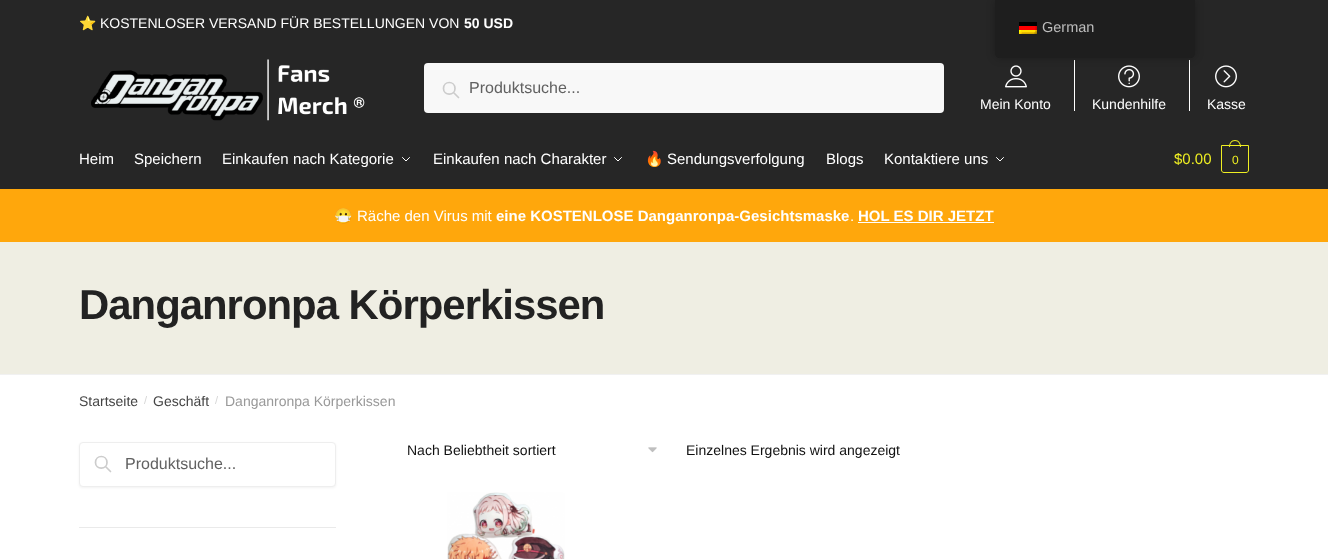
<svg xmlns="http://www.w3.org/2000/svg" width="1328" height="559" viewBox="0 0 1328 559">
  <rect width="100%" height="100%" fill="#fff"/>
  <path d="M0 0h1328v48H0z" fill="#262626"/>
  <path d="M0 48h1328v141H0z" fill="#262626"/>
  <image x="91" y="59" width="274" height="62" href="img/1.png"/>
  <rect x="424" y="63" width="520" height="50" rx="4" fill="#f8f8f8"/>
  <path d="M458.5 97.5L453.5 92.5M455 88.5C455 96 443.5 96 443.5 88.5C443.5 80.5 455 80.5 455 88.5Z" fill="none" stroke="#ccc" stroke-width="1.7" stroke-linecap="round" stroke-linejoin="round"/>
  <image x="1005" y="65" width="22" height="23" href="img/2.png"/>
  <path d="M1074 60h1v51H1074z" fill="#fff"/>
  <image x="1118" y="65" width="22" height="23" href="img/3.png"/>
  <path d="M1189 60h1v51H1189z" fill="#fff"/>
  <image x="1215" y="65" width="22" height="23" href="img/4.png"/>
  <path d="M409.5 157.5L406 161L402.5 157.5" fill="none" stroke="#fff" stroke-linecap="round" stroke-linejoin="round"/>
  <path d="M621.5 157.5L618 161L614.5 157.5" fill="none" stroke="#fff" stroke-linecap="round" stroke-linejoin="round"/>
  <path d="M1003.5 157.5L1000 161L996.5 157.5" fill="none" stroke="#fff" stroke-linecap="round" stroke-linejoin="round"/>
  <path d="M1221.5 145.5H1248.5V170C1248.5 171.5 1247.5 172.5 1246 172.5H1224C1222.5 172.5 1221.5 171.5 1221.5 170Z" fill="none" stroke="#ee2"/>
  <path d="M1235 140C1239 140 1241 143.5 1241 147H1229C1229 143.5 1231 140 1235 140ZM1235 141C1238.5 141 1240 144 1240 147H1230C1230 144 1231.5 141 1235 141Z" fill="#ee2" fill-rule="evenodd"/>
  <path d="M0 189h1328v53H0z" fill="#ffa70c"/>
  <path d="M858 222h136v1H858z" fill="#fff"/>
  <path d="M0 242h1328v132H0z" fill="#efeee3"/>
  <path d="M0 374h1328v1H0z" fill="#f1f1f1"/>
  <image x="648" y="447" width="9" height="6" href="img/5.png"/>
  <image x="447" y="492" width="118" height="67" href="img/6.png"/>
  <path d="M79 527h257v1H79z" fill="#eaeaea"/>
  <rect x="79" y="443" width="257" height="45" rx="4" fill="#0000000d" filter="blur(1px)"/>
  <rect x="79.5" y="442.5" width="256" height="44" rx="3.5" fill="#fff" stroke="#eee"/>
  <path d="M110.5 471.5L105.5 466.5M107 462.5C107 470 95.5 470 95.5 462.5C95.5 454.5 107 454.5 107 462.5Z" fill="none" stroke="#ccc" stroke-width="1.7" stroke-linecap="round" stroke-linejoin="round"/>
  <rect x="995" width="200" height="58" rx="5" fill="#00000040" filter="blur(4px)"/>
  <path d="M995 0H1195V53C1195 56 1193 58 1190 58H1000C997 58 995 56 995 53Z" fill="#1e1e1e"/>
  <image x="1019" y="22" width="18" height="12" href="img/7.png"/>
  <text x="79" y="28" font-family="Noto Color Emoji" font-size="14" fill="#fff">⭐</text>
  <text x="100" y="28" font-family="Liberation Sans" font-size="14" fill="#fff">KOSTENLOSER VERSAND FÜR BESTELLUNGEN VON</text>
  <text x="464" y="28" font-family="Liberation Sans" font-size="14" font-weight="bold" fill="#fff">50 USD</text>
  <text x="469" y="93" font-family="Liberation Sans" font-size="16" fill="#616161">Produktsuche...</text>
  <g font-family="Liberation Sans" font-size="14" fill="#fff">
    <text x="980" y="109">Mein Konto</text>
    <text x="1092" y="109">Kundenhilfe</text>
    <text x="1207" y="109">Kasse</text>
  </g>
  <g font-family="Liberation Sans" font-size="15" fill="#fff">
    <text x="79" y="164">Heim</text>
    <text x="134" y="164">Speichern</text>
    <text x="222" y="164">Einkaufen nach Kategorie</text>
    <text x="433" y="164">Einkaufen nach Charakter</text>
  </g>
  <text x="645" y="164" font-family="Noto Color Emoji" font-size="15" fill="#fff">🔥</text>
  <g font-family="Liberation Sans" font-size="15" fill="#fff">
    <text x="667" y="164">Sendungsverfolgung</text>
    <text x="826" y="164">Blogs</text>
    <text x="884" y="164">Kontaktiere uns</text>
  </g>
  <text x="1174" y="164" font-family="Liberation Sans" font-size="15" fill="#ee2">$0.00</text>
  <text x="1232" y="164" font-family="Liberation Sans" font-size="12" letter-spacing="-1" fill="#ee2">0</text>
  <text x="334" y="221" font-family="Noto Color Emoji" font-size="15" fill="#fff">😷</text>
  <text x="357" y="221" font-family="Liberation Sans" font-size="15" fill="#fff">Räche den Virus mit</text>
  <text x="496" y="221" font-family="Liberation Sans" font-size="15" font-weight="bold" fill="#fff">eine KOSTENLOSE Danganronpa-Gesichtsmaske</text>
  <text x="850" y="221" font-family="Liberation Sans" font-size="15" fill="#fff">.</text>
  <text x="858" y="221" font-family="Liberation Sans" font-size="15" font-weight="bold" fill="#fff">HOL ES DIR JETZT</text>
  <text x="79" y="319" font-family="Liberation Sans" font-size="41.9" font-weight="bold" letter-spacing="-1" fill="#222">Danganronpa Körperkissen</text>
  <text x="79" y="406" font-family="Liberation Sans" font-size="14" fill="#444">Startseite</text>
  <text x="144" y="404" font-family="Liberation Sans" font-size="11" fill="#d6d6d6">/</text>
  <text x="153" y="406" font-family="Liberation Sans" font-size="14" fill="#444">Geschäft</text>
  <text x="215" y="404" font-family="Liberation Sans" font-size="11" fill="#d6d6d6">/</text>
  <text x="225" y="406" font-family="Liberation Sans" font-size="14" fill="#999">Danganronpa Körperkissen</text>
  <g font-family="Liberation Sans" font-size="14" fill="#111">
    <text x="407" y="455">Nach Beliebtheit sortiert</text>
    <text x="686" y="455">Einzelnes Ergebnis wird angezeigt</text>
  </g>
  <text x="125" y="469" font-family="Liberation Sans" font-size="16" fill="#616161">Produktsuche...</text>
  <text x="1042" y="32" font-family="Liberation Sans" font-size="14.5" fill="#bdbdbd">German</text>
</svg>
